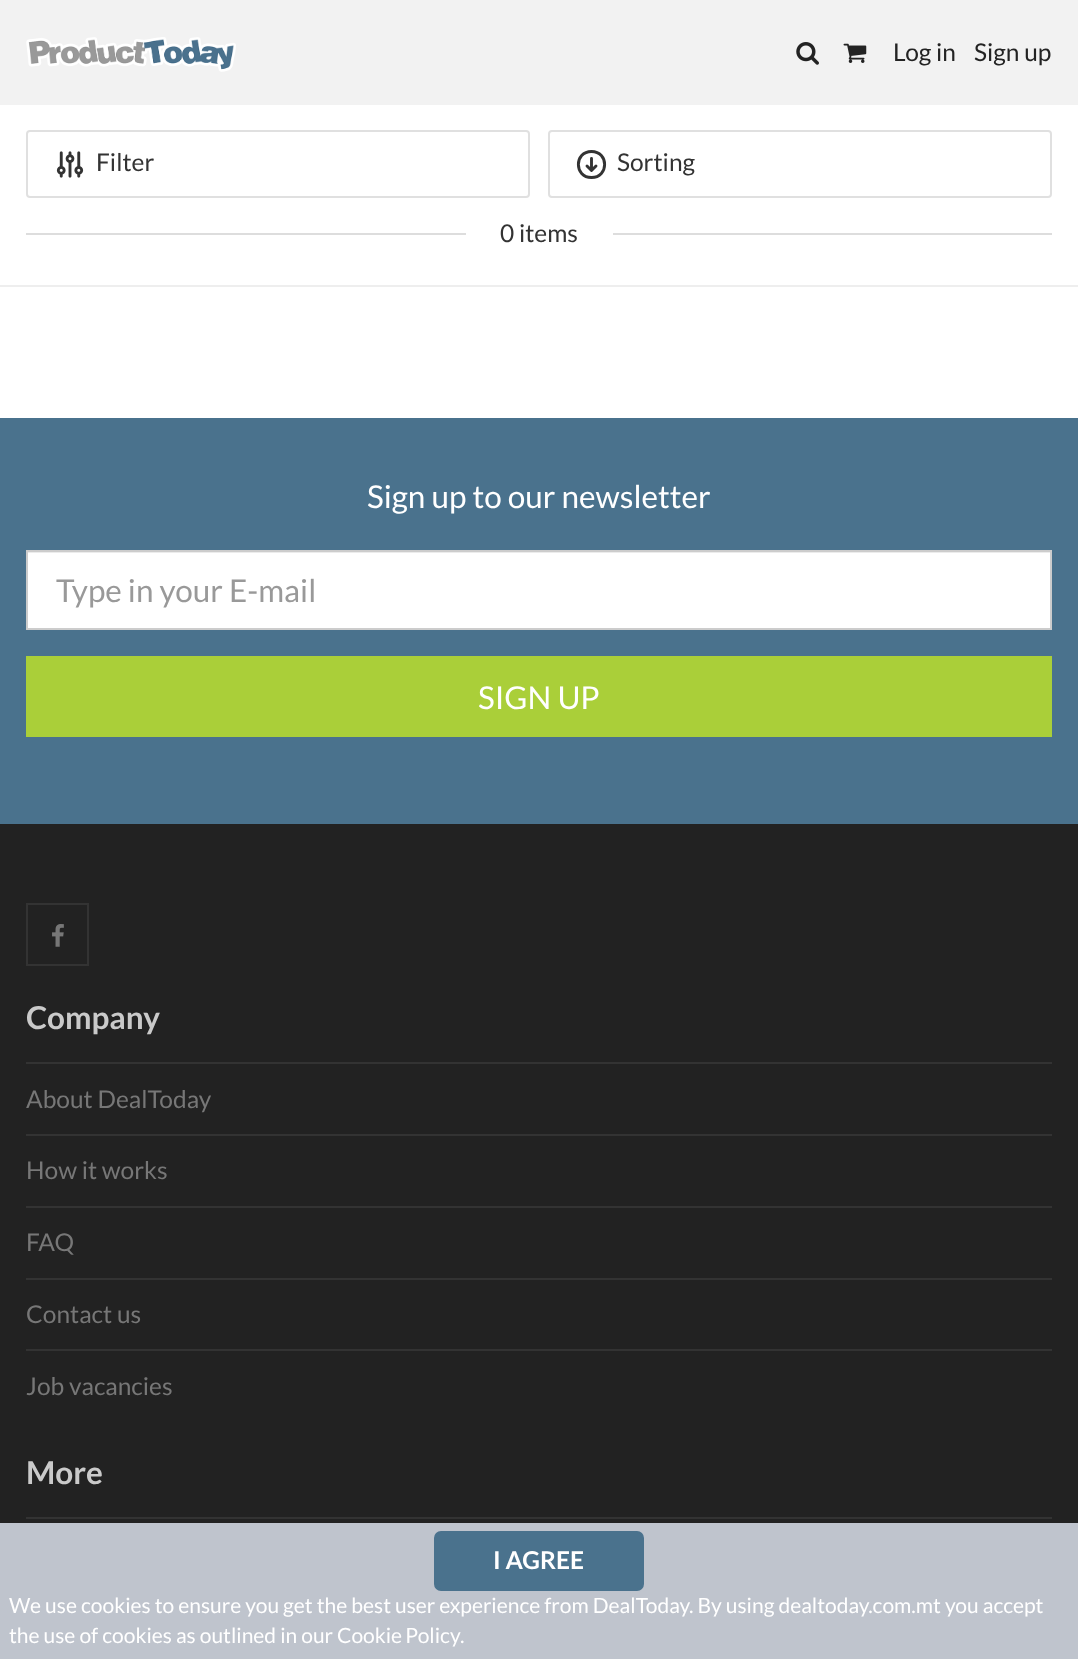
<svg xmlns="http://www.w3.org/2000/svg" width="1078" height="1659" viewBox="0 0 1078 1659">
  <rect width="100%" height="100%" fill="#fff"/>
  <path d="M0 0h1078v105H0z" fill="#f2f2f2"/>
  <image x="26" y="37" width="210" height="35" href="img/1.png"/>
  <image x="796" y="42" width="23" height="23" href="img/2.png"/>
  <image x="843" y="43" width="24" height="20" href="img/3.png"/>
  <rect x="27" y="131" width="502" height="66" rx="3" fill="none" stroke="#e0e0e0" stroke-width="2"/>
  <image x="56" y="151" width="28" height="27" href="img/4.png"/>
  <rect x="549" y="131" width="502" height="66" rx="3" fill="none" stroke="#e0e0e0" stroke-width="2"/>
  <path d="M596 166L591.5 170.5M591.5 170.5L587 166M591.5 170.5V158.5M591.5 177.5C574 177.5 574 151.5 591.5 151.5C609 151.5 609 177.5 591.5 177.5Z" fill="none" stroke="#333" stroke-width="2.9" stroke-linecap="round" stroke-linejoin="round"/>
  <path d="M26 233h1026v2H26z" fill="#ddd"/>
  <path d="M466 233h147v2H466z" fill="#fff"/>
  <path d="M0 285h1078v2H0z" fill="#eee"/>
  <path d="M0 418h1078v406H0z" fill="#4a728d"/>
  <path d="M28 553h1022v75H28z" fill="#fff"/>
  <path d="M28 552h1022v1H28z" fill="#ececec"/>
  <path d="M27 551h1024v78H27z" fill="none" stroke="#ccc" stroke-width="2"/>
  <path d="M26 656h1026v81H26z" fill="#aacf39"/>
  <path d="M0 824h1078v699H0z" fill="#222"/>
  <path d="M27 904h61v61H27z" fill="none" stroke="#333" stroke-width="2"/>
  <image x="52" y="924" width="12" height="23" href="img/5.png"/>
  <path d="M26 1062h1026v2H26z" fill="#333"/>
  <path d="M26 1134h1026v2H26z" fill="#333"/>
  <path d="M26 1206h1026v2H26z" fill="#333"/>
  <path d="M26 1278h1026v2H26z" fill="#333"/>
  <path d="M26 1349h1026v2H26z" fill="#333"/>
  <path d="M26 1517h1026v2H26z" fill="#333"/>
  <path d="M0 1523h1078v136H0z" fill="#bfc4cd"/>
  <rect x="435" y="1532" width="208" height="58" rx="6" fill="#4a728d" stroke="#4a728d" stroke-width="2"/>
  <g font-family="Lato" font-size="24.5" fill="#232323">
    <text x="893" y="61">Log in</text>
    <text x="974" y="61">Sign up</text>
  </g>
  <g font-family="Lato" font-size="24.5" fill="#333">
    <text x="96" y="171">Filter</text>
    <text x="617" y="171">Sorting</text>
    <text x="500" y="242">0 items</text>
  </g>
  <text x="367" y="508" font-family="Lato" font-size="31.5" fill="#fff">Sign up to our newsletter</text>
  <text x="56" y="602" font-family="Lato" font-size="31.5" fill="#999">Type in your E-mail</text>
  <text x="478" y="709" font-family="Lato" font-size="31.5" fill="#fff">SIGN UP</text>
  <text x="26" y="1029" font-family="Lato" font-size="31.5" font-weight="bold" fill="#cacaca">Company</text>
  <g font-family="Lato" font-size="24.5" fill="#777">
    <text x="26" y="1108">About DealToday</text>
    <text x="26" y="1179">How it works</text>
    <text x="26" y="1251">FAQ</text>
    <text x="26" y="1323">Contact us</text>
    <text x="26" y="1395">Job vacancies</text>
  </g>
  <text x="26" y="1484" font-family="Lato" font-size="31.5" font-weight="bold" fill="#cacaca">More</text>
  <text x="493" y="1569" font-family="Lato" font-size="24.5" font-weight="bold" fill="#fff">I AGREE</text>
  <g font-family="Lato" font-size="21" fill="#fff">
    <text x="9" y="1613">We use cookies to ensure you get the best user experience from DealToday. By using dealtoday.com.mt you accept</text>
    <text x="9" y="1643">the use of cookies as outlined in our</text>
    <text x="337" y="1643" word-spacing="-1">Cookie Policy</text>
    <text x="460" y="1643">.</text>
  </g>
</svg>
